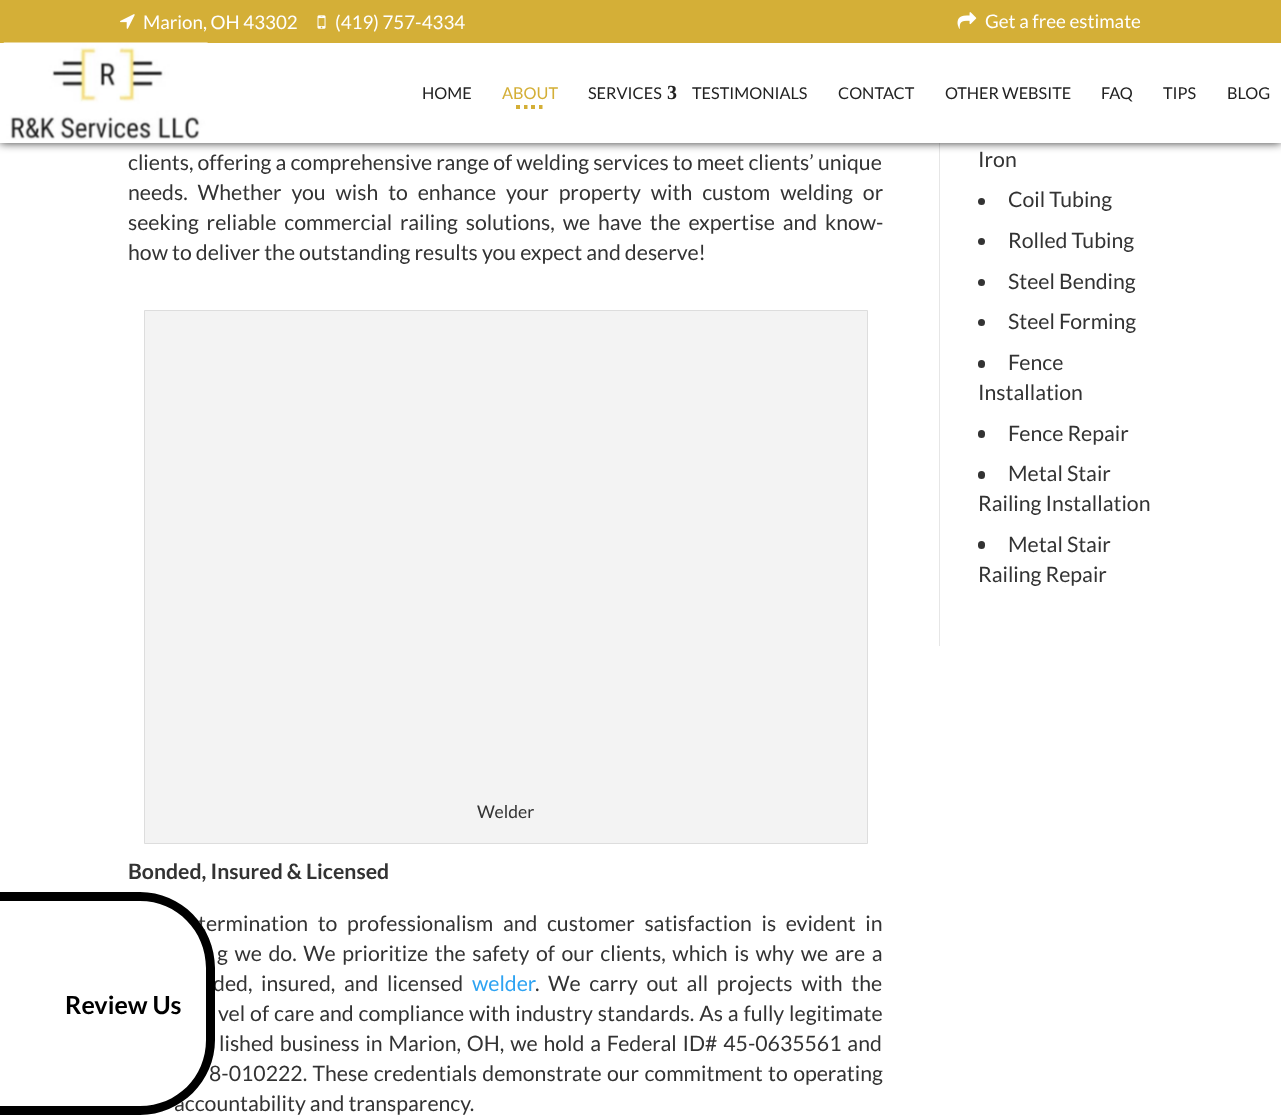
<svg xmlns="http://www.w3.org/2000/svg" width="1281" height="1115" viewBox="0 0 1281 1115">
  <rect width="100%" height="100%" fill="#fff"/>
  <path d="M939 143h1v503H939z" fill="#e6e6e6"/>
  <path d="M0 0h1281v143H0z" fill="#000000cc" filter="blur(5px)"/>
  <path d="M0 43h1281v100H0z" fill="#fff"/>
  <path d="M0 0h1281v43H0z" fill="#d4af37"/>
  <image x="120" y="14" width="15" height="15" href="img/1.png"/>
  <image x="317" y="15" width="9" height="14" href="img/2.png"/>
  <image x="957" y="12" width="20" height="17" href="img/3.png"/>
  <image x="3" y="42" width="205" height="98" href="img/4.png"/>
  <path d="M516 107H520M524 107H527.5M531 107H535M539 107H542.5" fill="none" stroke="#d4af37" stroke-width="3.8"/>
  <path d="M144.5 310.5h723v533H144.5z" fill="#f3f3f3" stroke="#ddd"/>
  <circle cx="981.5" cy="201.5" r="3.5" fill="#333"/>
  <circle cx="981.5" cy="241.5" r="3.5" fill="#333"/>
  <circle cx="981.5" cy="282.5" r="3.5" fill="#333"/>
  <circle cx="981.5" cy="322.5" r="3.5" fill="#333"/>
  <rect x="978" y="360" width="7" height="8" rx="3.5" fill="#333"/>
  <rect x="978" y="430" width="7" height="8" rx="3.5" fill="#333"/>
  <rect x="978" y="471" width="7" height="8" rx="3.5" fill="#333"/>
  <rect x="978" y="541" width="7" height="8" rx="3.5" fill="#333"/>
  <g font-family="Lato" font-size="18.75" fill="#fff">
    <text x="143" y="29">Marion, OH 43302</text>
    <text x="335" y="29">(419) 757-4334</text>
    <text x="985" y="28">Get a free estimate</text>
  </g>
  <text x="422" y="99" font-family="Lato" font-size="16.25" fill="#222">HOME</text>
  <text x="502" y="99" font-family="Lato" font-size="16.25" fill="#d4af37">ABOUT</text>
  <text x="588" y="99" font-family="Lato" font-size="16.25" fill="#222">SERVICES</text>
  <text x="667" y="99" font-family="Liberation Serif" font-size="20" font-weight="bold" fill="#222">3</text>
  <g font-family="Lato" font-size="16.25" fill="#222">
    <text x="692" y="99">TESTIMONIALS</text>
    <text x="838" y="99">CONTACT</text>
    <text x="945" y="99">OTHER WEBSITE</text>
    <text x="1101" y="99">FAQ</text>
    <text x="1163" y="99">TIPS</text>
    <text x="1227" y="99">BLOG</text>
  </g>
  <g font-family="Lato" font-size="21.25" fill="#333">
    <text x="128" y="170">clients, offering a comprehensive range of welding services to meet clients’ unique</text>
    <text x="128" y="200" word-spacing="5.75">needs. Whether you wish to enhance your property with custom welding or</text>
    <text x="128" y="230" word-spacing="3.75">seeking reliable commercial railing solutions, we have the expertise and know-</text>
    <text x="128" y="260">how to deliver the outstanding results you expect and deserve!</text>
  </g>
  <text x="477" y="818" font-family="Lato" font-size="17.5" fill="#333">Welder</text>
  <text x="128" y="879" font-family="Lato" font-size="21.25" font-weight="bold" fill="#333">Bonded, Insured &amp; Licensed</text>
  <g font-family="Lato" font-size="21.25" fill="#333">
    <text x="198" y="931" word-spacing="5.5">termination to professionalism and customer satisfaction is evident in</text>
    <text x="217" y="961" word-spacing="2.5">g we do. We prioritize the safety of our clients, which is why we are a</text>
    <text x="213" y="991" word-spacing="4.5">ded, insured, and licensed</text>
  </g>
  <text x="472" y="991" font-family="Lato" font-size="21.25" fill="#2ea3f2">welder</text>
  <g font-family="Lato" font-size="21.25" fill="#333">
    <text x="535" y="991" word-spacing="4.5">. We carry out all projects with the</text>
    <text x="218" y="1021" word-spacing="0.8">vel of care and compliance with industry standards. As a fully legitimate</text>
    <text x="219" y="1051" word-spacing="1.75">lished business in Marion, OH, we hold a Federal ID# 45-0635561 and</text>
    <text x="209" y="1081" word-spacing="1.25">8-010222. These credentials demonstrate our commitment to operating</text>
    <text x="174" y="1111">accountability and transparency.</text>
  </g>
  <path d="M0 893H140C181.5 893 215 926.5 215 968V1040C215 1081.5 181.5 1115 140 1115H0Z" fill="#fff"/>
  <path d="M0 892H140C181 892 215 926 215 968V1040C215 1081 181 1115 140 1115H0ZM0 901H140C177 901 206 931 206 968V1040C206 1077 177 1106 140 1106H0Z" fill="#000" fill-rule="evenodd"/>
  <text x="65" y="1014" font-family="Lato" font-size="25" font-weight="bold" fill="#000">Review Us</text>
  <g font-family="Lato" font-size="21.25" fill="#333">
    <text x="978" y="167">Iron</text>
    <text x="1008" y="207">Coil Tubing</text>
    <text x="1008" y="248">Rolled Tubing</text>
    <text x="1008" y="289">Steel Bending</text>
    <text x="1008" y="329">Steel Forming</text>
    <text x="1008" y="370">Fence</text>
    <text x="978" y="400">Installation</text>
    <text x="1008" y="441">Fence Repair</text>
    <text x="1008" y="481">Metal Stair</text>
    <text x="978" y="511">Railing Installation</text>
    <text x="1008" y="552">Metal Stair</text>
    <text x="978" y="582">Railing Repair</text>
  </g>
</svg>
